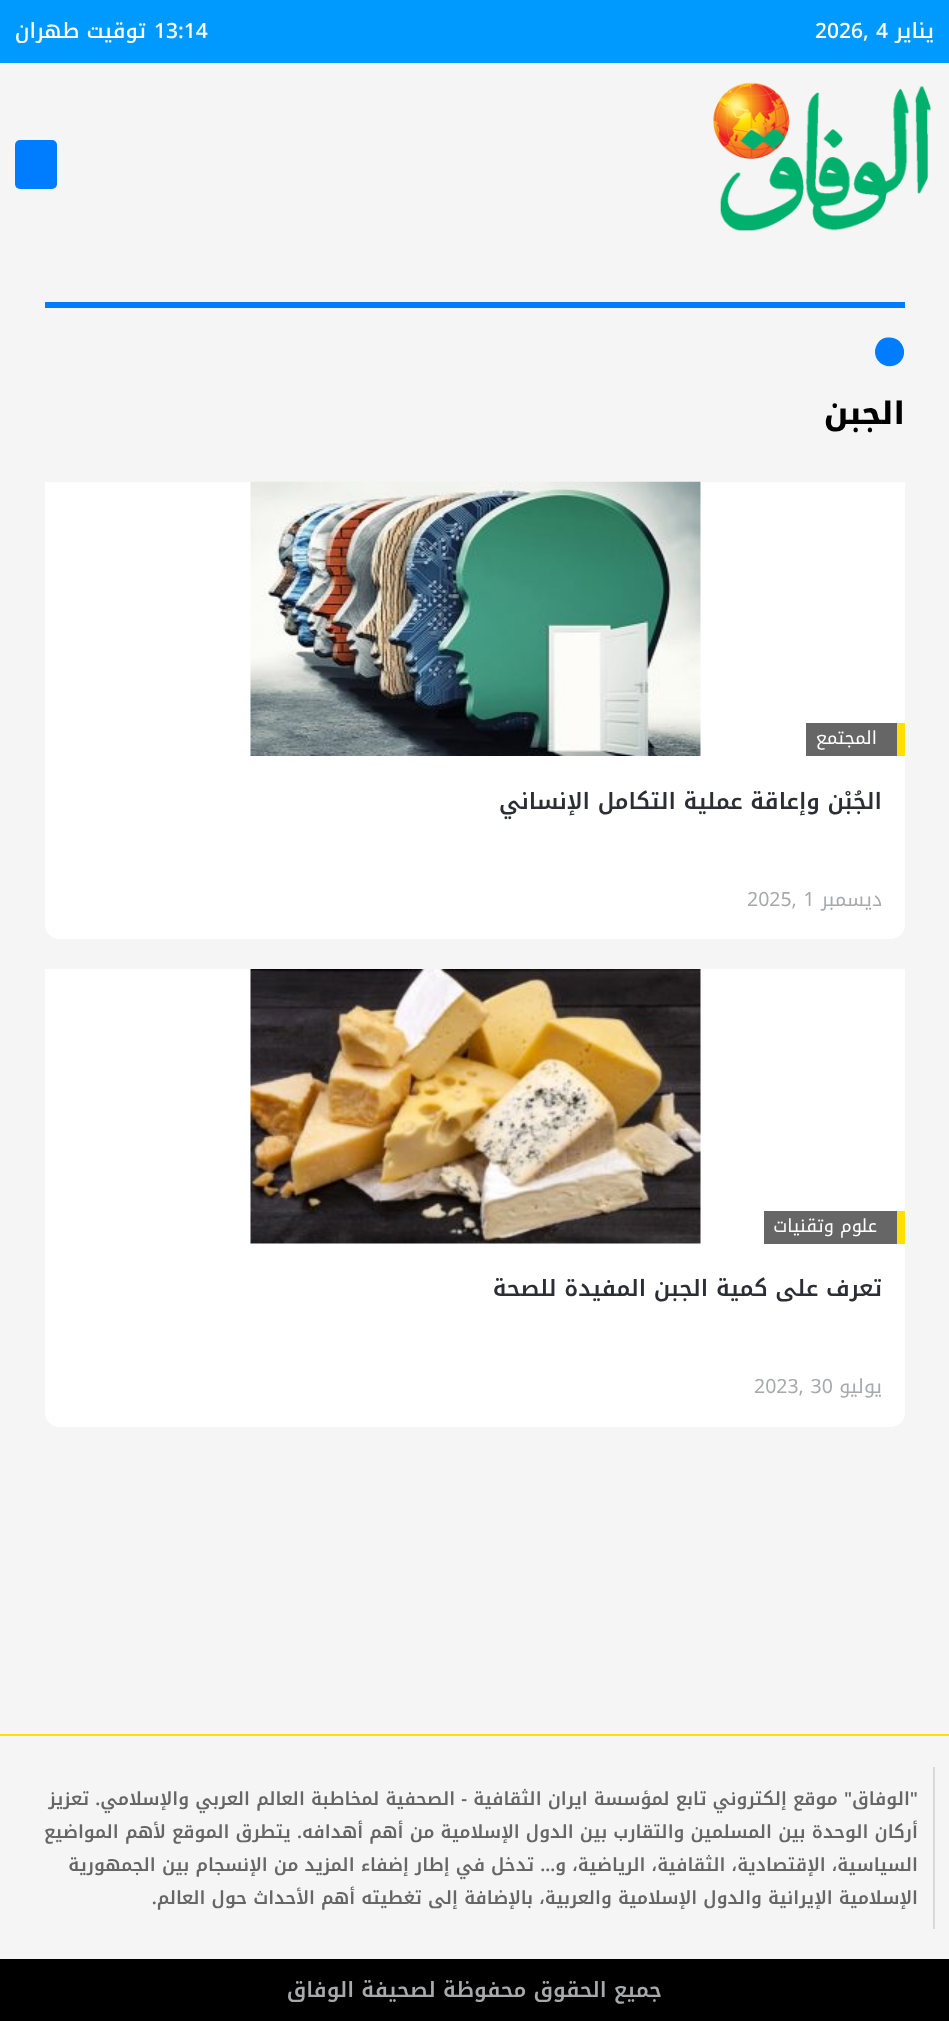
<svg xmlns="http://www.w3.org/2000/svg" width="949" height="2021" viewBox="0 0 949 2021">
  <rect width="100%" height="100%" fill="#f5f5f5"/>
  <path d="M0 0h949v63H0z" fill="#009aff"/>
  <image x="713" y="82" width="218" height="149" href="img/1.png"/>
  <rect x="15" y="140" width="42" height="49" rx="5" fill="#007cff"/>
  <path d="M45 302h860v6H45z" fill="#007cff"/>
  <path d="M879 341.5C881.5 339 884.5 337.5 888 337.5C901.5 336 909.5 352.5 900 362C890 371.5 874 364 875 350.5C875.5 347 877 344 879 341.5Z" fill="#007cff"/>
  <path d="M45 482H905V924C905 932.5 898.5 939 890 939H60C51.5 939 45 932.5 45 924Z" fill="#fff"/>
  <path d="M806 723h91v33H806z" fill="#666"/>
  <path d="M897 723h8v33H897z" fill="#ffe000"/>
  <image x="250" y="481" width="451" height="275" href="img/2.png"/>
  <path d="M45 969H905V1412C905 1420.5 898.5 1427 890 1427H60C51.5 1427 45 1420.5 45 1412Z" fill="#fff"/>
  <path d="M764 1211h133v33H764z" fill="#666"/>
  <path d="M897 1211h8v33H897z" fill="#ffe000"/>
  <image x="250" y="969" width="451" height="275" href="img/3.png"/>
  <path d="M0 1734h949v2H0z" fill="#ffe000"/>
  <path d="M933 1767h2v162H933z" fill="#d7d8d8"/>
  <path d="M0 1959h949v62H0z" fill="#000"/>
  <text x="934" y="38" font-family="Noto Kufi Arabic" font-size="21" font-weight="500" direction="rtl" fill="#fff">يناير</text>
  <g font-family="Noto Kufi Arabic" font-size="21" font-weight="500" fill="#fff">
    <text x="815" y="38">2026, 4</text>
    <text x="154" y="38">13:14</text>
  </g>
  <text x="146" y="38" font-family="Noto Kufi Arabic" font-size="21" font-weight="500" direction="rtl" fill="#fff">توقيت طهران</text>
  <text x="905" y="424" font-family="Noto Kufi Arabic" font-size="31" font-weight="800" direction="rtl" fill="#000">الجبن</text>
  <text x="877" y="744" font-family="Noto Kufi Arabic" font-size="18" direction="rtl" fill="#fff">المجتمع</text>
  <text x="882" y="809" font-family="Noto Kufi Arabic" font-size="22.5" font-weight="600" direction="rtl" fill="#2b2e34">الجُبْن وإعاقة عملية التكامل الإنساني</text>
  <text x="882" y="906" font-family="Noto Kufi Arabic" font-size="19.5" direction="rtl" fill="#a7a9ab">ديسمبر</text>
  <text x="747" y="906" font-family="Noto Kufi Arabic" font-size="19.5" fill="#a7a9ab">2025, 1</text>
  <text x="877" y="1232" font-family="Noto Kufi Arabic" font-size="18" direction="rtl" fill="#fff">علوم وتقنيات</text>
  <text x="882" y="1296" font-family="Noto Kufi Arabic" font-size="22.5" font-weight="600" direction="rtl" fill="#2b2e34">تعرف على كمية الجبن المفيدة للصحة</text>
  <text x="882" y="1393" font-family="Noto Kufi Arabic" font-size="19.5" direction="rtl" fill="#a7a9ab">يوليو</text>
  <text x="754" y="1393" font-family="Noto Kufi Arabic" font-size="19.5" fill="#a7a9ab">2023, 30</text>
  <g font-family="Noto Kufi Arabic" font-size="18" font-weight="600" direction="rtl" fill="#666">
    <text x="918" y="1805">"الوفاق" موقع إلكتروني تابع لمؤسسة ايران الثقافية - الصحفية لمخاطبة العالم العربي والإسلامي. تعزيز</text>
    <text x="918" y="1838">أركان الوحدة بين المسلمين والتقارب بين الدول الإسلامية من أهم أهدافه. يتطرق الموقع لأهم المواضيع</text>
    <text x="918" y="1871">السياسية، الإقتصادية، الثقافية، الرياضية، و... تدخل في إطار إضفاء المزيد من الإنسجام بين الجمهورية</text>
    <text x="918" y="1904">الإسلامية الإيرانية والدول الإسلامية والعربية، بالإضافة إلى تغطيته أهم الأحداث حول العالم.</text>
  </g>
  <text x="662" y="1997" font-family="Noto Kufi Arabic" font-size="21" font-weight="600" direction="rtl" fill="#a7a9ab">جمیع الحقوق محفوظة لصحیفة الوفاق</text>
</svg>
